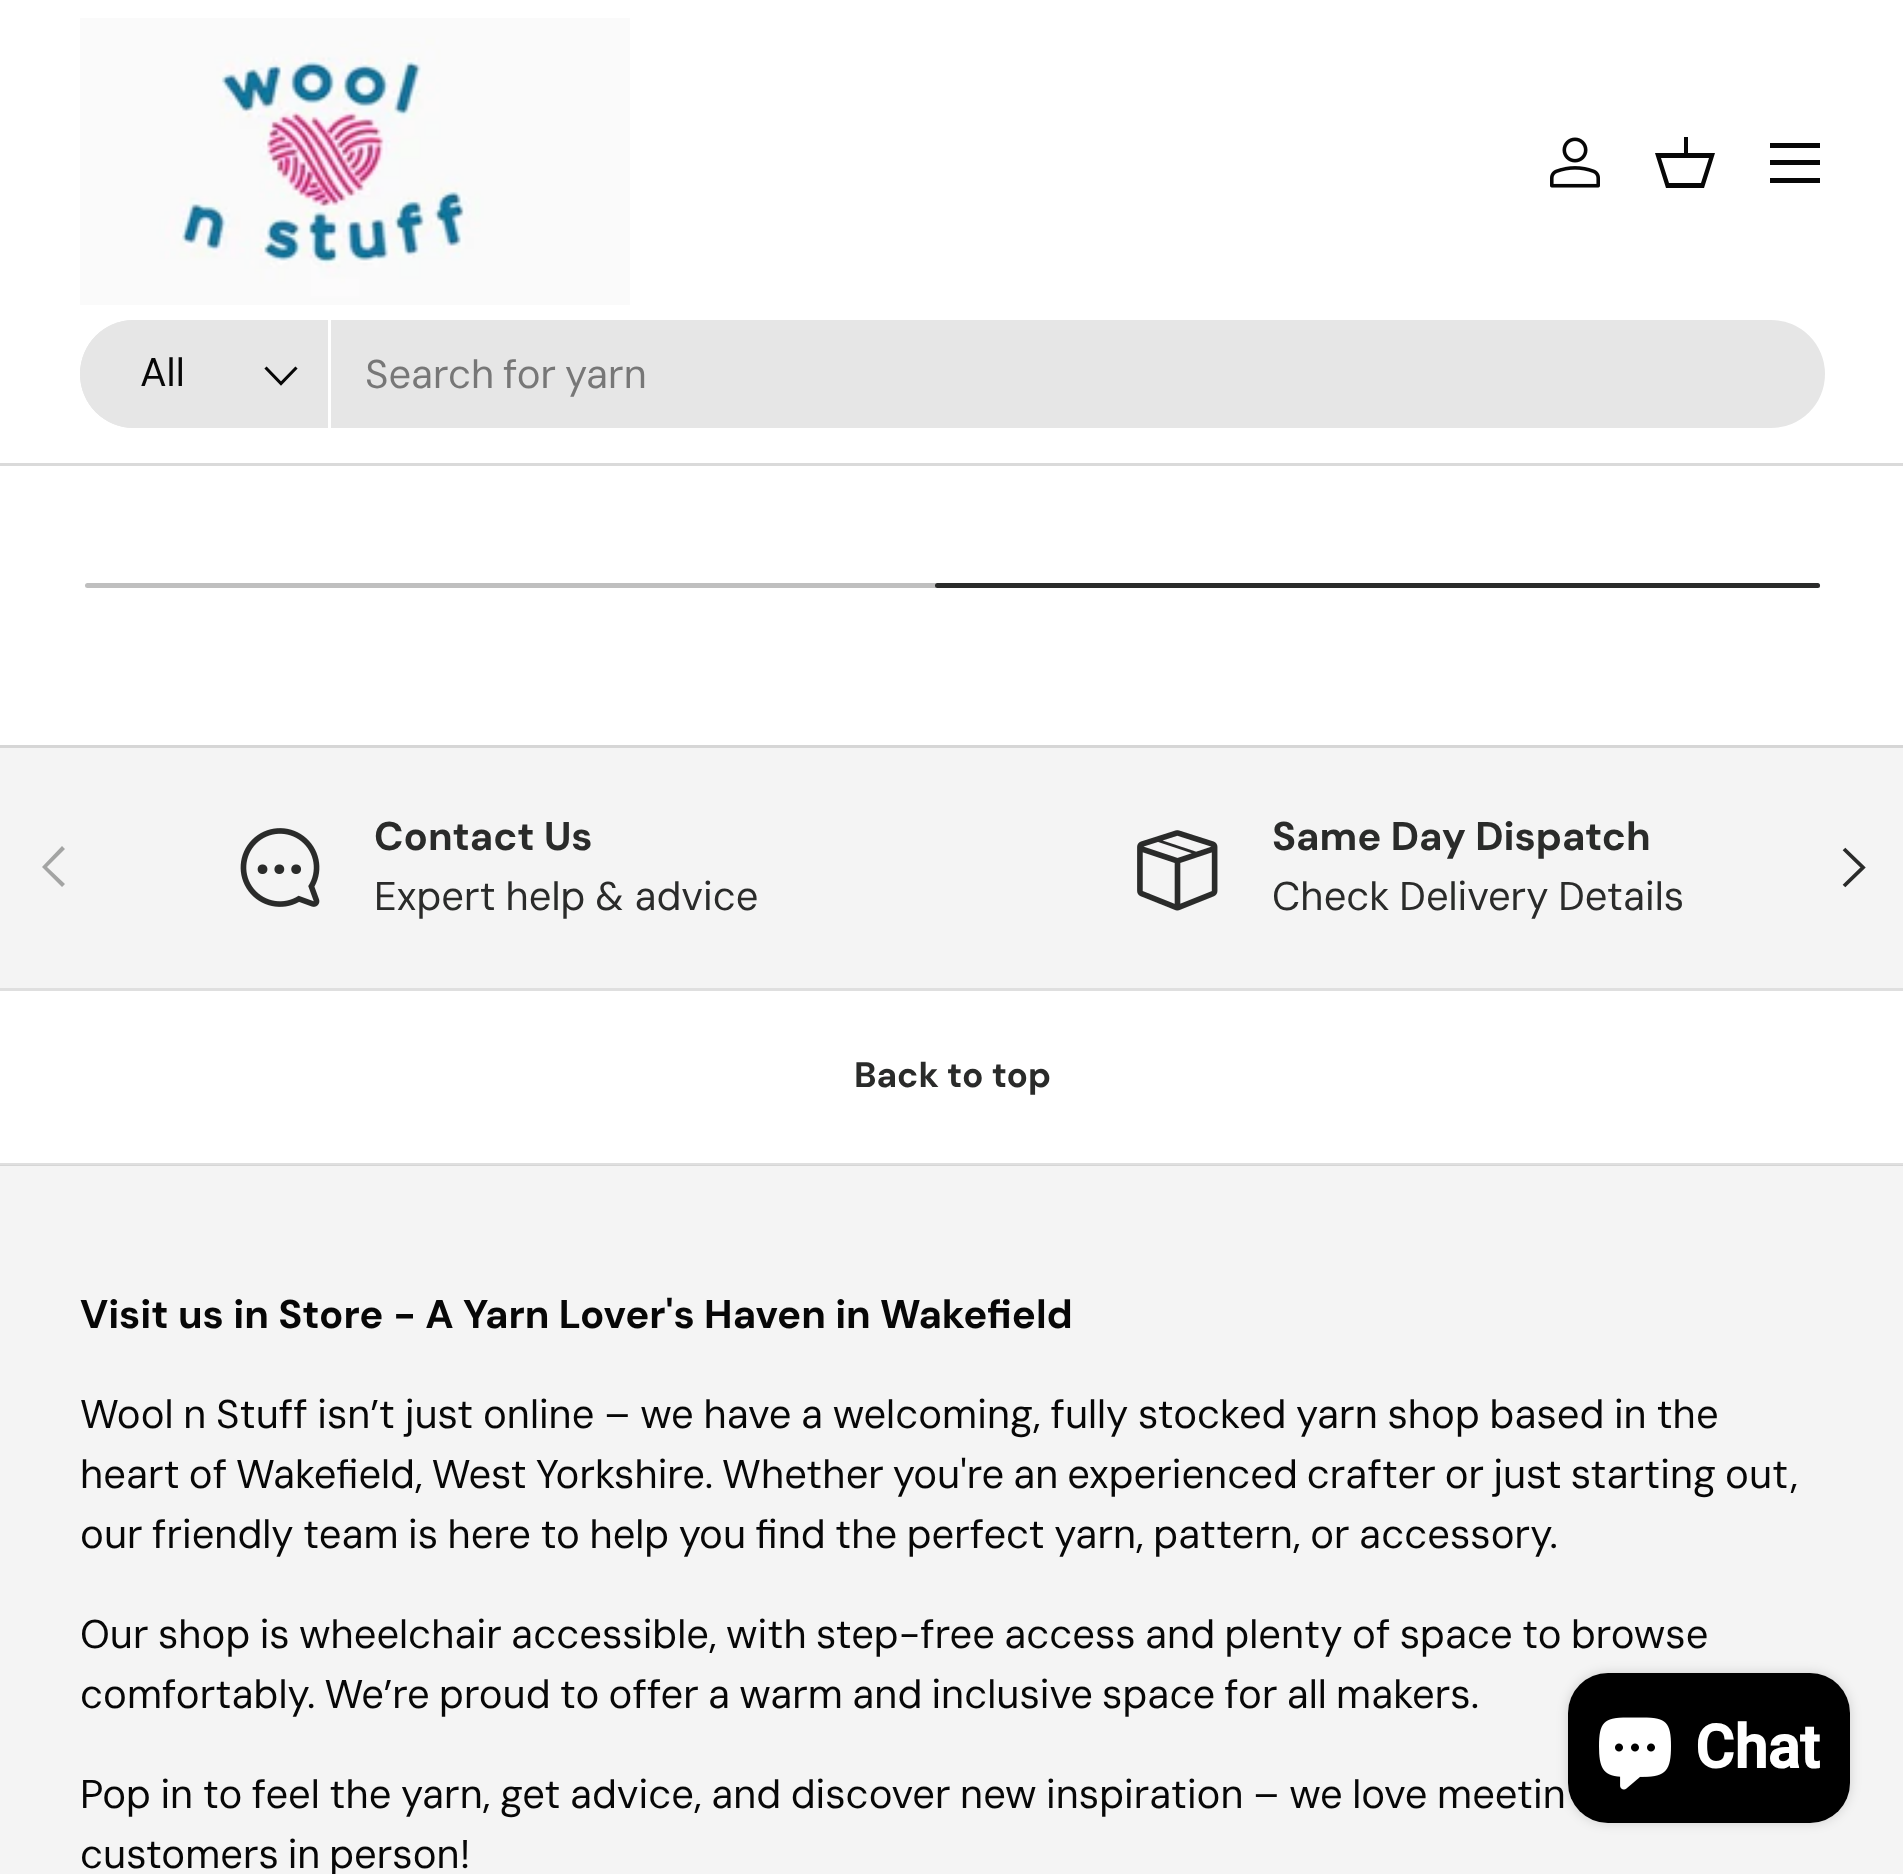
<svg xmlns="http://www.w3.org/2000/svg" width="1903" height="1874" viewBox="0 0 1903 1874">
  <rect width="100%" height="100%" fill="#fff"/>
  <path d="M0 1163h1903v2H0z" fill="#dfdfdf"/>
  <path d="M0 463h1903v3H0z" fill="#dadada"/>
  <image x="80" y="18" width="550" height="287" href="img/1.png"/>
  <image x="1550" y="137" width="50" height="51" href="img/2.png"/>
  <path d="M1684 153V137H1688V153H1715L1704 188H1666L1655 153ZM1661 158L1669 183H1701L1709 158Z" fill="#070707"/>
  <path d="M1770 143h50v5H1770z" fill="#070707"/>
  <path d="M1770 178h50v5H1770z" fill="#070707"/>
  <path d="M1770 160h50v5H1770z" fill="#070707"/>
  <rect x="80" y="320" width="1745" height="108" rx="54" fill="#e6e6e6"/>
  <path d="M134 320H330V428H134C104 428 80 404 80 374C80 344 104 320 134 320Z" fill="#e6e6e6"/>
  <path d="M328 320h3v108H328z" fill="#fff"/>
  <path d="M296.5 367.5L281 383.5L265.5 367.5" fill="none" stroke="#070707" stroke-width="3.1"/>
  <rect x="85" y="583" width="1735" height="5" rx="2.5" fill="#bfbfbf"/>
  <rect x="935" y="583" width="885" height="5" rx="2.5" fill="#2a2b2a"/>
  <path d="M0 748h1903v240H0z" fill="#f4f4f4"/>
  <path d="M0 745h1903v3H0z" fill="#d6d6d6"/>
  <image x="240" y="828" width="80" height="79" href="img/3.png"/>
  <image x="1137" y="830" width="81" height="81" href="img/4.png"/>
  <path d="M42 867L62 846L65 849L47 867L65 884L62 887Z" fill="#a3a4a3"/>
  <path d="M1844 849L1863 867.5L1844 886" fill="none" stroke="#2a2b2a" stroke-width="3.8"/>
  <path d="M0 988h1903v3H0z" fill="#dfdfdf"/>
  <path d="M0 1166h1903v708H0z" fill="#f4f4f4"/>
  <path d="M0 1165h1903v1H0z" fill="#d6d6d6"/>
  <rect x="1568" y="1673" width="282" height="150" rx="40" fill="#00000026" filter="blur(6px)"/>
  <rect x="1568" y="1673" width="282" height="150" rx="40" fill="#000"/>
  <image x="1599" y="1717" width="72" height="73" href="img/5.png"/>
  <text x="140" y="386" font-family="DM Sans" font-size="40" fill="#070707">All</text>
  <text x="365" y="388" word-spacing="-2" font-family="DM Sans" font-size="40" fill="#777">Search for yarn</text>
  <text x="374" y="850" font-family="DM Sans" font-size="40" font-weight="bold" fill="#2a2b2a">Contact Us</text>
  <text x="374" y="910" word-spacing="-1" font-family="DM Sans" font-size="40" fill="#2a2b2a">Expert help &amp; advice</text>
  <text x="1272" y="850" font-family="DM Sans" font-size="40" font-weight="bold" fill="#2a2b2a">Same Day Dispatch</text>
  <text x="1272" y="910" word-spacing="-1" font-family="DM Sans" font-size="40" fill="#2a2b2a">Check Delivery Details</text>
  <text x="854" y="1087" font-family="'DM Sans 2'" font-size="35.25" font-weight="bold" fill="#2a2b2a">Back to top</text>
  <text x="80" y="1328" font-family="DM Sans" font-size="40" font-weight="bold" fill="#070707">Visit us in Store - A Yarn Lover's Haven in Wakefield</text>
  <g font-family="DM Sans" font-size="40" fill="#070707">
    <text x="80" y="1428" word-spacing="-1.1">Wool n Stuff isn’t just online – we have a welcoming, fully stocked yarn shop based in the</text>
    <text x="80" y="1488" word-spacing="-1.8">heart of Wakefield, West Yorkshire. Whether you're an experienced crafter or just starting out,</text>
    <text x="80" y="1548" word-spacing="-1.3">our friendly team is here to help you find the perfect yarn, pattern, or accessory.</text>
    <text x="80" y="1648" word-spacing="-1.4">Our shop is wheelchair accessible, with step-free access and plenty of space to browse</text>
    <text x="80" y="1708" word-spacing="-1.5">comfortably. We’re proud to offer a warm and inclusive space for all makers.</text>
    <text x="80" y="1808" word-spacing="-1.25">Pop in to feel the yarn, get advice, and discover new inspiration – we love meetin</text>
    <text x="80" y="1868" word-spacing="-2">customers in person!</text>
  </g>
  <text x="1695" y="1768" font-family="Roboto" font-size="60" font-weight="bold" fill="#fff">Chat</text>
</svg>
